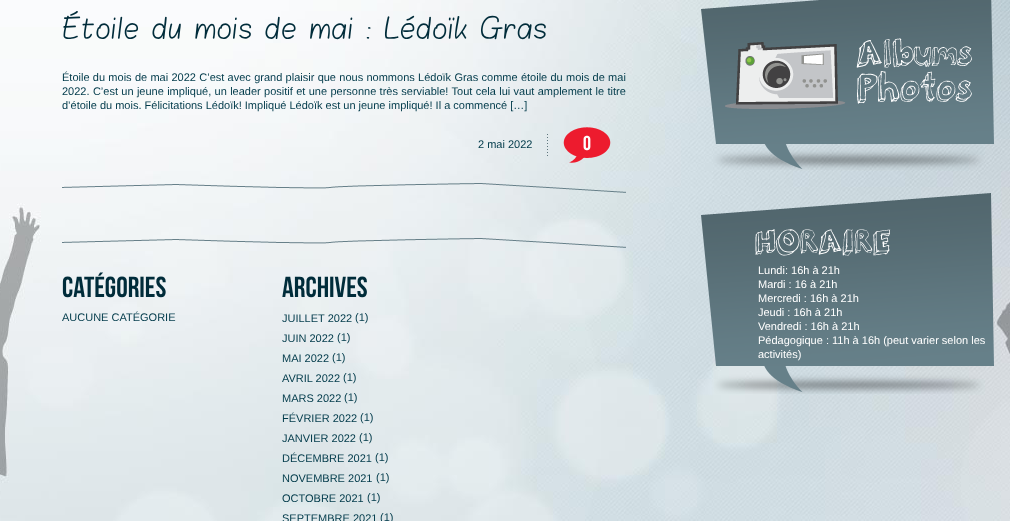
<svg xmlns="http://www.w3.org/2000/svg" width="1010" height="521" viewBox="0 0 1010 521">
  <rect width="100%" height="100%" fill="#fff"/>
  <image x="0" y="0" width="1010" height="521" href="img/1.png"/>
  <image x="547" y="134" width="1" height="22" href="img/2.png"/>
  <image x="563" y="127" width="48" height="36" href="img/3.png"/>
  <image x="62" y="183" width="564" height="10" href="img/4.png"/>
  <image x="62" y="238" width="564" height="10" href="img/5.png"/>
  <image x="701" y="0" width="293" height="170" href="img/6.png"/>
  <image x="725" y="38" width="247" height="71" href="img/7.png"/>
  <image x="701" y="193" width="293" height="201" href="img/8.png"/>
  <text x="62" y="38" font-family="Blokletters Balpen" font-size="24" fill="#002c3a">Étoile du mois de mai : Lédoïk Gras</text>
  <g font-family="Liberation Sans" font-size="11" fill="#003a4a">
    <text x="62" y="81" word-spacing="0.25">Étoile du mois de mai 2022 C’est avec grand plaisir que nous nommons Lédoïk Gras comme étoile du mois de mai</text>
    <text x="62" y="95" word-spacing="0.3">2022. C’est un jeune impliqué, un leader positif et une personne très serviable! Tout cela lui vaut amplement le titre</text>
    <text x="62" y="109">d’étoile du mois. Félicitations Lédoïk! Impliqué Lédoïk est un jeune impliqué! Il a commencé […]</text>
    <text x="478" y="148">2 mai 2022</text>
  </g>
  <text x="583" y="150" font-family="Bebas Neue" font-size="20" fill="#fff">0</text>
  <text x="62" y="297" font-family="Bebas Neue" font-size="29" fill="#002c3a">Catégories</text>
  <text x="62" y="321" font-family="Liberation Sans" font-size="11" fill="#003a4a">AUCUNE CATÉGORIE</text>
  <text x="282" y="297" font-family="Bebas Neue" font-size="29" fill="#002c3a">Archives</text>
  <g font-family="Liberation Sans" font-size="11" fill="#003a4a">
    <text x="282" y="322">JUILLET 2022</text>
    <text x="355" y="321">(1)</text>
    <text x="282" y="342">JUIN 2022</text>
    <text x="337" y="341">(1)</text>
    <text x="282" y="362">MAI 2022</text>
    <text x="332" y="361">(1)</text>
    <text x="282" y="382">AVRIL 2022</text>
    <text x="343" y="381">(1)</text>
    <text x="282" y="402">MARS 2022</text>
    <text x="344" y="401">(1)</text>
    <text x="282" y="422">FÉVRIER 2022</text>
    <text x="360" y="421">(1)</text>
    <text x="282" y="442">JANVIER 2022</text>
    <text x="359" y="441">(1)</text>
    <text x="282" y="462">DÉCEMBRE 2021</text>
    <text x="375" y="461">(1)</text>
    <text x="282" y="482">NOVEMBRE 2021</text>
    <text x="376" y="481">(1)</text>
    <text x="282" y="502">OCTOBRE 2021</text>
    <text x="367" y="501">(1)</text>
    <text x="282" y="522">SEPTEMBRE 2021</text>
    <text x="380" y="521">(1)</text>
  </g>
  <g font-family="Liberation Sans" font-size="11" fill="#fff">
    <text x="758" y="274">Lundi: 16h à 21h</text>
    <text x="758" y="288">Mardi : 16 à 21h</text>
    <text x="758" y="302">Mercredi : 16h à 21h</text>
    <text x="758" y="316">Jeudi : 16h à 21h</text>
    <text x="758" y="330">Vendredi : 16h à 21h</text>
    <text x="758" y="344">Pédagogique : 11h à 16h (peut varier selon les</text>
    <text x="758" y="358">activités)</text>
  </g>
</svg>
